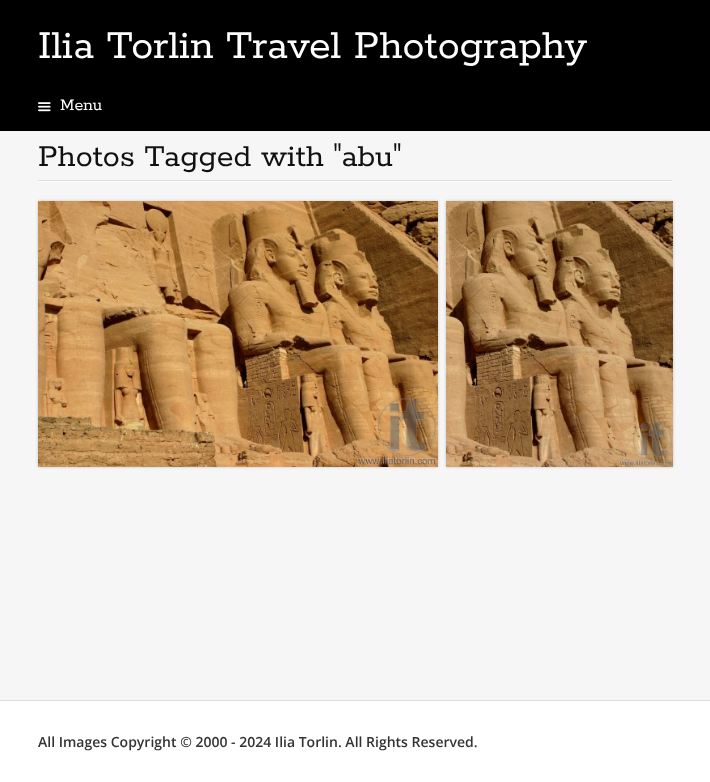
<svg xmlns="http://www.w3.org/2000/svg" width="710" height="782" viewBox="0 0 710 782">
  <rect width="100%" height="100%" fill="#f6f6f6"/>
  <path d="M0 0h710v131H0z" fill="#000"/>
  <image x="38" y="102" width="13" height="10" href="img/1.png"/>
  <path d="M38 181h634v1H38z" fill="#fff"/>
  <path d="M38 180h634v1H38z" fill="#ddd"/>
  <path d="M38 201h400v266H38z" fill="#00000033" filter="blur(1.5px)"/>
  <image x="38" y="201" width="400" height="266" href="img/2.png"/>
  <path d="M446 201h227v266H446z" fill="#00000033" filter="blur(1.5px)"/>
  <image x="446" y="201" width="227" height="266" href="img/3.png"/>
  <path d="M0 701h710v81H0z" fill="#fff"/>
  <path d="M0 700h710v1H0z" fill="#ddd"/>
  <text x="38" y="58" font-family="Rokkitt" font-size="44" fill="#fff">Ilia Torlin Travel Photography</text>
  <text x="60" y="110" font-family="Rokkitt" font-size="18" fill="#fff">Menu</text>
  <text x="38" y="166" font-family="Rokkitt" font-size="34" fill="#111">Photos Tagged with "abu"</text>
  <text x="38" y="747" font-family="Open Sans" font-size="14" font-weight="600" fill="#333">All Images Copyright © 2000 - 2024 Ilia Torlin. All Rights Reserved.</text>
</svg>
